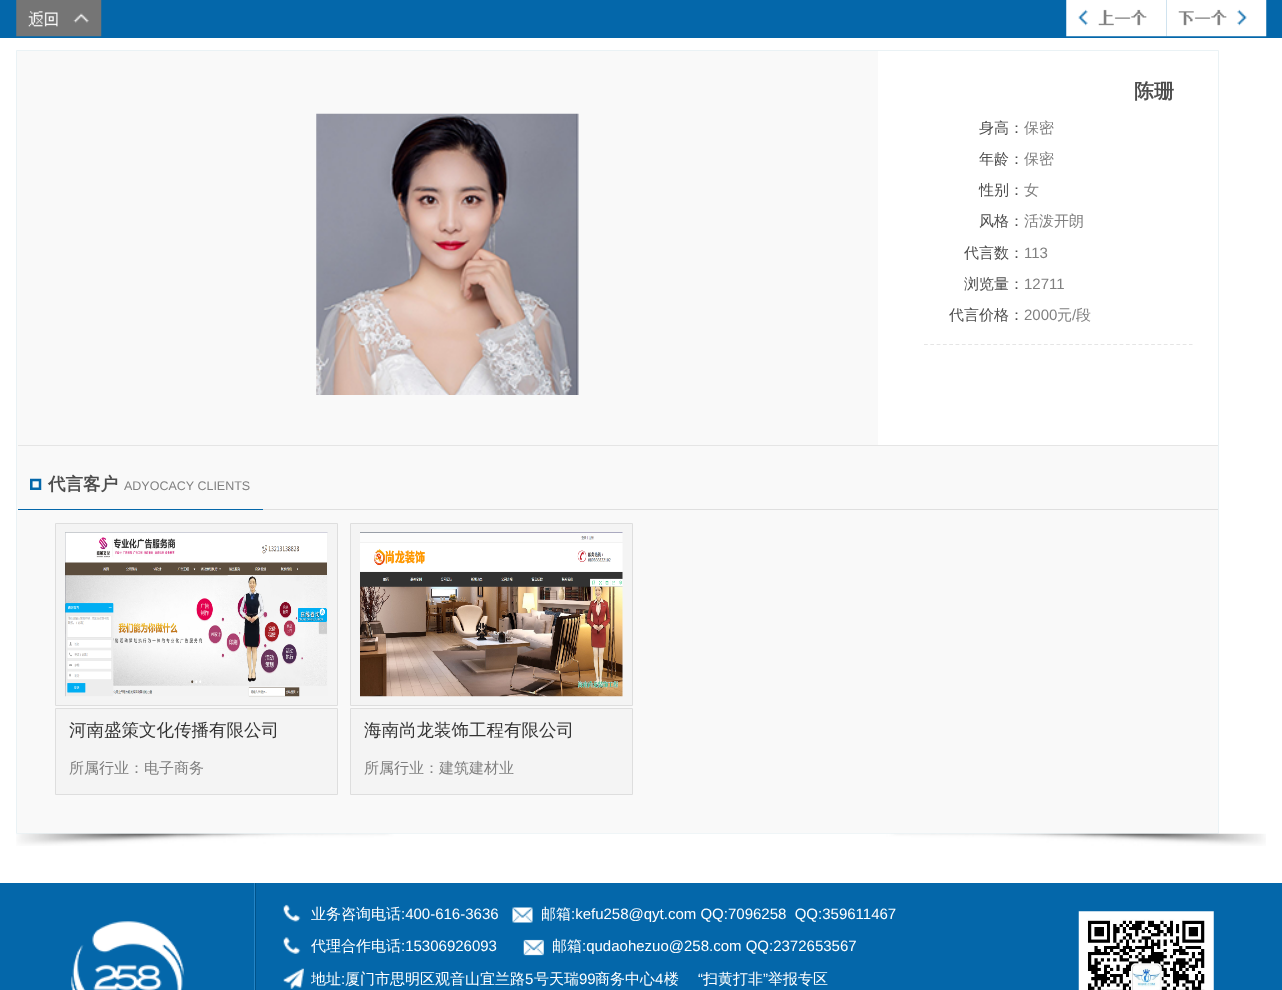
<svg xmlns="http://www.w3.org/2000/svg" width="1282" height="990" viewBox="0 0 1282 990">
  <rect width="100%" height="100%" fill="#fff"/>
  <path d="M0 0h1282v38H0z" fill="#0467aa"/>
  <image x="16" y="0" width="86" height="37" href="img/1.png"/>
  <image x="1066" y="0" width="101" height="37" href="img/2.png"/>
  <image x="1166" y="0" width="101" height="37" href="img/3.png"/>
  <path d="M16.5 50.5h1202v783H16.5z" fill="#f9f9f9" stroke="#eaf2f5"/>
  <path d="M878 51h340v394H878z" fill="#fff"/>
  <path d="M18 445h1200v1H18z" fill="#e5e5e5"/>
  <image x="316" y="113" width="263" height="282" href="img/4.png"/>
  <path d="M924 344.5H1192.5" fill="none" stroke="#e5e5e5" stroke-width="1.2" stroke-dasharray="3.75 2.56"/>
  <path d="M263 509h955v1H263z" fill="#dfdfdf"/>
  <path d="M18 509h245v1H18z" fill="#0467aa"/>
  <image x="30" y="478" width="12" height="12" href="img/5.png"/>
  <path d="M55.5 523.5h282v182H55.5z" fill="#f4f4f4" stroke="#dedede"/>
  <image x="65" y="532" width="263" height="165" href="img/6.png"/>
  <path d="M55.5 708.5h282v86H55.5z" fill="#f4f4f4" stroke="#dedede"/>
  <path d="M350.5 523.5h282v182H350.5z" fill="#f4f4f4" stroke="#dedede"/>
  <image x="360" y="532" width="263" height="165" href="img/7.png"/>
  <path d="M350.5 708.5h282v86H350.5z" fill="#f4f4f4" stroke="#dedede"/>
  <image x="16" y="833" width="1250" height="13" href="img/8.png"/>
  <path d="M0 883h1282v107H0z" fill="#0467aa"/>
  <image x="71" y="921" width="114" height="69" href="img/9.png"/>
  <path d="M254 883h1v107H254z" fill="#2485c6"/>
  <path d="M255 883h1v107H255z" fill="#00538b"/>
  <image x="283" y="904" width="18" height="18" href="img/10.png"/>
  <image x="512" y="907" width="21" height="16" href="img/11.png"/>
  <image x="283" y="937" width="18" height="17" href="img/12.png"/>
  <image x="523" y="939" width="21" height="17" href="img/13.png"/>
  <image x="283" y="968" width="21" height="21" href="img/14.png"/>
  <image x="1078" y="911" width="136" height="79" href="img/15.png"/>
  <text x="1134" y="98" font-family="WenQuanYi Zen Hei" font-size="20" font-weight="bold" fill="#4d4d4d">陈珊</text>
  <text x="979" y="133" font-family="WenQuanYi Zen Hei" font-size="15" font-weight="500" fill="#4d4d4d">身高：</text>
  <text x="1024" y="133" font-family="WenQuanYi Zen Hei" font-size="15" font-weight="500" fill="#808080">保密</text>
  <text x="979" y="164" font-family="WenQuanYi Zen Hei" font-size="15" font-weight="500" fill="#4d4d4d">年龄：</text>
  <text x="1024" y="164" font-family="WenQuanYi Zen Hei" font-size="15" font-weight="500" fill="#808080">保密</text>
  <text x="979" y="195" font-family="WenQuanYi Zen Hei" font-size="15" font-weight="500" fill="#4d4d4d">性别：</text>
  <text x="1024" y="195" font-family="WenQuanYi Zen Hei" font-size="15" font-weight="500" fill="#808080">女</text>
  <text x="979" y="226" font-family="WenQuanYi Zen Hei" font-size="15" font-weight="500" fill="#4d4d4d">风格：</text>
  <text x="1024" y="226" font-family="WenQuanYi Zen Hei" font-size="15" font-weight="500" fill="#808080">活泼开朗</text>
  <text x="964" y="258" font-family="WenQuanYi Zen Hei" font-size="15" font-weight="500" fill="#4d4d4d">代言数：</text>
  <text x="1024" y="258" font-family="Liberation Sans" font-size="15" fill="#808080">113</text>
  <text x="964" y="289" font-family="WenQuanYi Zen Hei" font-size="15" font-weight="500" fill="#4d4d4d">浏览量：</text>
  <text x="1024" y="289" font-family="Liberation Sans" font-size="15" fill="#808080">12711</text>
  <text x="949" y="320" font-family="WenQuanYi Zen Hei" font-size="15" font-weight="500" fill="#4d4d4d">代言价格：</text>
  <text x="1024" y="320" font-family="Liberation Sans" font-size="15" fill="#808080">2000</text>
  <text x="1057" y="320" font-family="WenQuanYi Zen Hei" font-size="15" font-weight="500" fill="#808080">元</text>
  <text x="1072" y="320" font-family="Liberation Sans" font-size="15" fill="#808080">/</text>
  <text x="1076" y="320" font-family="WenQuanYi Zen Hei" font-size="15" font-weight="500" fill="#808080">段</text>
  <text x="48" y="490" font-family="WenQuanYi Zen Hei" font-size="17.5" font-weight="bold" fill="#4d4d4d">代言客户</text>
  <text x="124" y="490" font-family="Liberation Sans" font-size="12.5" fill="#808080">ADYOCACY CLIENTS</text>
  <text x="69" y="736" font-family="WenQuanYi Zen Hei" font-size="17.5" font-weight="500" fill="#333">河南盛策文化传播有限公司</text>
  <text x="69" y="773" font-family="WenQuanYi Zen Hei" font-size="15" font-weight="500" fill="#808080">所属行业：电子商务</text>
  <text x="364" y="736" font-family="WenQuanYi Zen Hei" font-size="17.5" font-weight="500" fill="#333">海南尚龙装饰工程有限公司</text>
  <text x="364" y="773" font-family="WenQuanYi Zen Hei" font-size="15" font-weight="500" fill="#808080">所属行业：建筑建材业</text>
  <text x="311" y="919" font-family="WenQuanYi Zen Hei" font-size="15" font-weight="500" fill="#fff">业务咨询电话</text>
  <text x="401" y="919" font-family="Liberation Sans" font-size="15" fill="#fff">:400-616-3636</text>
  <text x="541" y="919" font-family="WenQuanYi Zen Hei" font-size="15" font-weight="500" fill="#fff">邮箱</text>
  <text x="571" y="919" font-family="Liberation Sans" font-size="15" fill="#fff" xml:space="preserve">:kefu258@qyt.com QQ:7096258  QQ:359611467</text>
  <text x="311" y="951" font-family="WenQuanYi Zen Hei" font-size="15" font-weight="500" fill="#fff">代理合作电话</text>
  <text x="401" y="951" font-family="Liberation Sans" font-size="15" fill="#fff">:15306926093</text>
  <text x="552" y="951" font-family="WenQuanYi Zen Hei" font-size="15" font-weight="500" fill="#fff">邮箱</text>
  <text x="582" y="951" font-family="Liberation Sans" font-size="15" fill="#fff">:qudaohezuo@258.com QQ:2372653567</text>
  <g font-family="WenQuanYi Zen Hei" font-size="15" font-weight="500" fill="#fff">
    <text x="311" y="984">地址</text>
    <text x="345" y="984">厦门市思明区观音山宜兰路</text>
  </g>
  <text x="525" y="984" font-family="Liberation Sans" font-size="15" fill="#fff">5</text>
  <text x="534" y="984" font-family="WenQuanYi Zen Hei" font-size="15" font-weight="500" fill="#fff">号天瑞</text>
  <text x="579" y="984" font-family="Liberation Sans" font-size="15" fill="#fff">99</text>
  <text x="595" y="984" font-family="WenQuanYi Zen Hei" font-size="15" font-weight="500" fill="#fff">商务中心</text>
  <text x="655" y="984" font-family="Liberation Sans" font-size="15" fill="#fff">4</text>
  <text x="664" y="984" font-family="WenQuanYi Zen Hei" font-size="15" font-weight="500" fill="#fff">楼</text>
  <text x="698" y="984" font-family="Liberation Sans" font-size="15" fill="#fff">“</text>
  <text x="703" y="984" font-family="WenQuanYi Zen Hei" font-size="15" font-weight="500" fill="#fff">扫黄打非</text>
  <text x="763" y="984" font-family="Liberation Sans" font-size="15" fill="#fff">”</text>
  <text x="768" y="984" font-family="WenQuanYi Zen Hei" font-size="15" font-weight="500" fill="#fff">举报专区</text>
  <text x="341" y="984" font-family="Liberation Sans" font-size="15" fill="#fff">:</text>
</svg>
